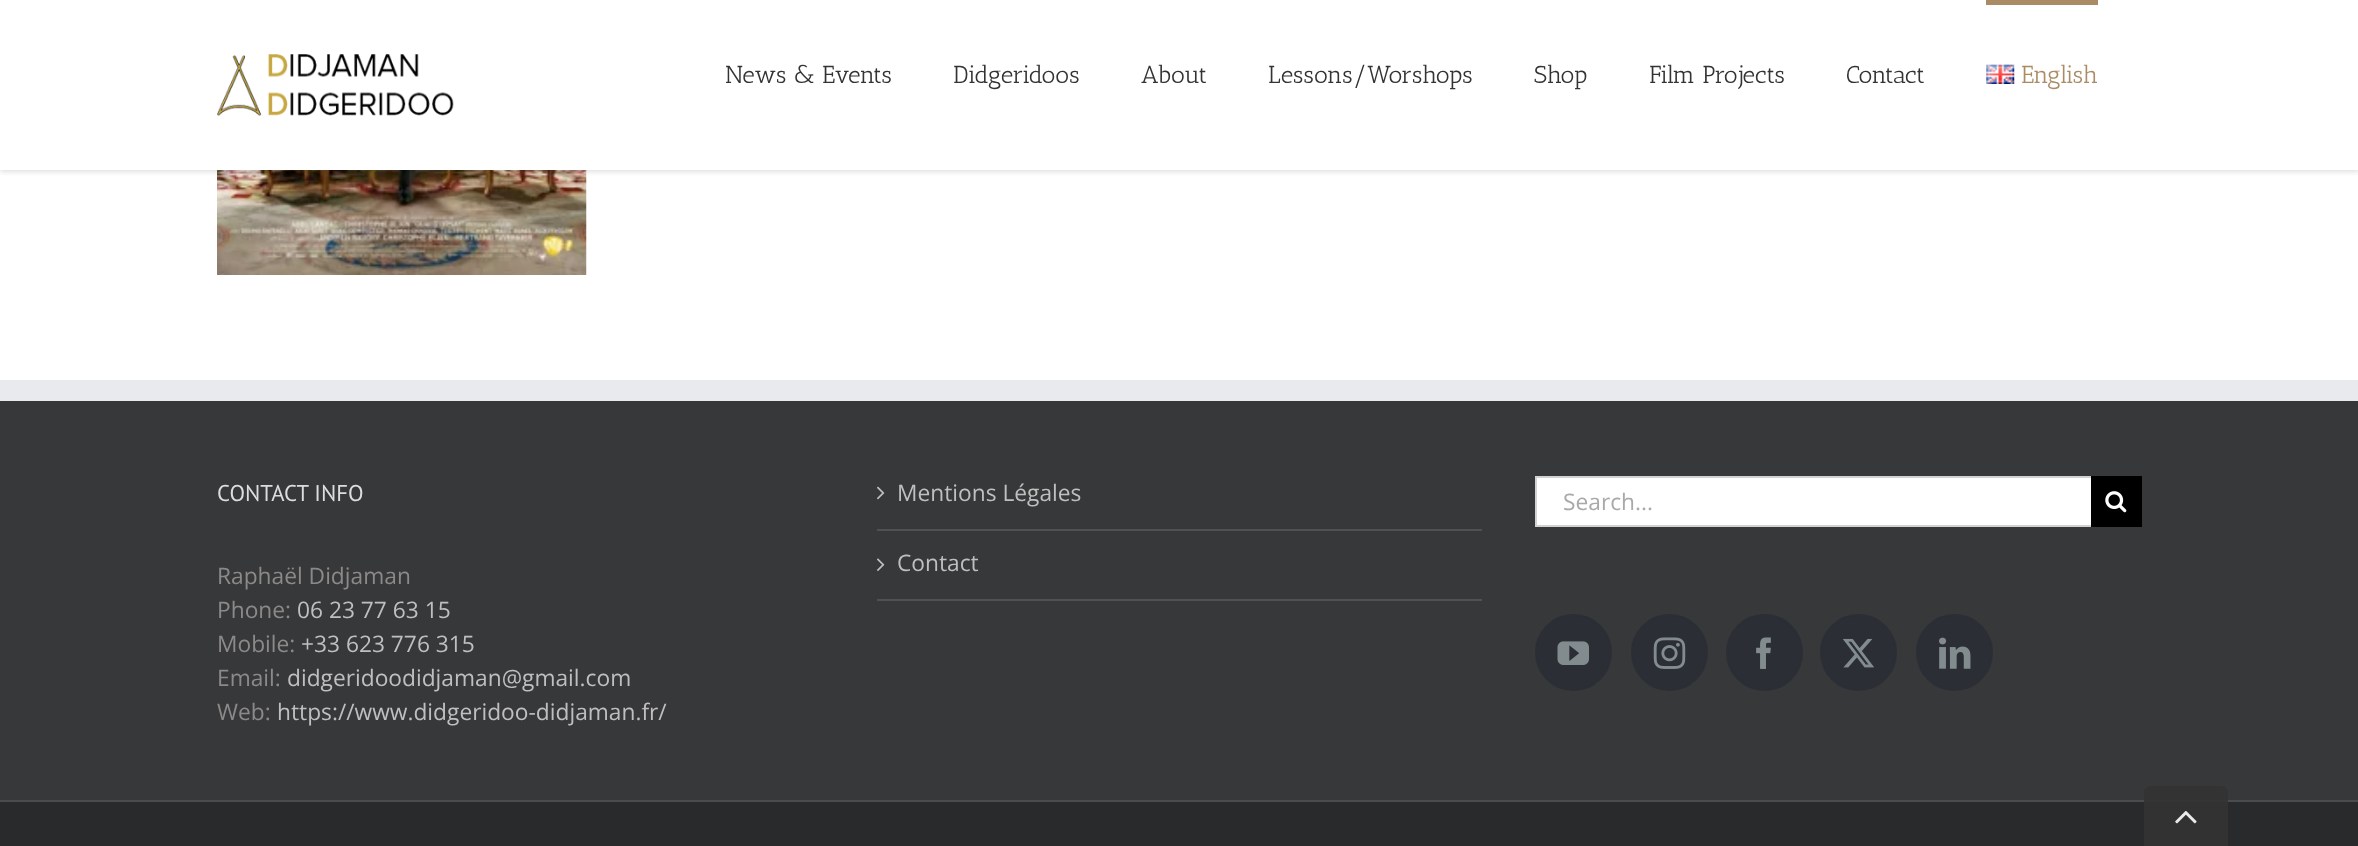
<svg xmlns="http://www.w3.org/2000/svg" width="2358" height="846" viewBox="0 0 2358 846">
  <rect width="100%" height="100%" fill="#fff"/>
  <image x="217" y="170" width="370" height="105" href="img/3.png"/>
  <path d="M0 2h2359v170H0z" fill="#0000001f" filter="blur(2.5px)"/>
  <path d="M0 0h2358v170H0z" fill="#fff"/>
  <image x="217" y="54" width="237" height="62" href="img/1.png"/>
  <path d="M1986 0h112v5H1986z" fill="#ab8b65"/>
  <image x="1986" y="64" width="29" height="20" href="img/2.png"/>
  <path d="M0 401h2358v399H0z" fill="#363839"/>
  <path d="M0 380h2358v21H0z" fill="#e9eaee"/>
  <path d="M877 529h605v2H877z" fill="#505152"/>
  <image x="877" y="486" width="8" height="14" href="img/4.png"/>
  <path d="M877 599h605v2H877z" fill="#505152"/>
  <image x="877" y="558" width="8" height="13" href="img/5.png"/>
  <path d="M1537 478h554v47H1537z" fill="#fff"/>
  <path d="M1535 476h556v2H1535z" fill="#d2d2d2"/>
  <path d="M1535 525h556v2H1535z" fill="#d2d2d2"/>
  <path d="M1535 476h2v51H1535z" fill="#d2d2d2"/>
  <path d="M2091 476h51v51H2091z" fill="#000"/>
  <image x="2105" y="491" width="22" height="22" href="img/6.png"/>
  <circle cx="1573.5" cy="652.5" r="37.5" fill="#2b2e35" stroke="#2b2e35" stroke-width="2"/>
  <image x="1557" y="641" width="32" height="24" href="img/7.png"/>
  <circle cx="1669.5" cy="652.5" r="37.5" fill="#2b2e35" stroke="#2b2e35" stroke-width="2"/>
  <image x="1653" y="637" width="33" height="32" href="img/8.png"/>
  <circle cx="1764.5" cy="652.5" r="37.5" fill="#2b2e35" stroke="#2b2e35" stroke-width="2"/>
  <image x="1756" y="637" width="15" height="32" href="img/9.png"/>
  <circle cx="1858.5" cy="652.5" r="37.5" fill="#2b2e35" stroke="#2b2e35" stroke-width="2"/>
  <image x="1843" y="638" width="31" height="30" href="img/10.png"/>
  <circle cx="1954.5" cy="652.5" r="37.5" fill="#2b2e35" stroke="#2b2e35" stroke-width="2"/>
  <image x="1939" y="637" width="32" height="32" href="img/11.png"/>
  <path d="M0 802h2358v44H0z" fill="#282a2b"/>
  <path d="M0 800h2358v2H0z" fill="#4b4c4d"/>
  <path d="M2151 786H2221C2225 786 2228 789 2228 793V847H2144V793C2144 789 2147 786 2151 786Z" fill="#333333e6"/>
  <image x="2175" y="811" width="22" height="13" href="img/12.png"/>
  <g font-family="Antic Slab" font-size="24.5" fill="#333">
    <text x="725" y="83">News &amp; Events</text>
    <text x="953" y="83">Didgeridoos</text>
    <text x="1141" y="83">About</text>
    <text x="1268" y="83">Lessons/Worshops</text>
    <text x="1534" y="83">Shop</text>
    <text x="1649" y="83">Film Projects</text>
    <text x="1846" y="83">Contact</text>
  </g>
  <text x="2021" y="83" font-family="Antic Slab" font-size="24.5" fill="#ab8b65">English</text>
  <text x="217" y="501" font-family="PT Sans" font-size="22.75" fill="#ddd">CONTACT INFO</text>
  <g font-family="Open Sans" font-size="22.75" fill="#8c8989">
    <text x="217" y="584">Raphaël Didjaman</text>
    <text x="217" y="618">Phone:</text>
  </g>
  <text x="297" y="618" font-family="Open Sans" font-size="22.75" fill="#bfbfbf">06 23 77 63 15</text>
  <text x="217" y="652" font-family="Open Sans" font-size="22.75" fill="#8c8989">Mobile:</text>
  <text x="301" y="652" font-family="Open Sans" font-size="22.75" fill="#bfbfbf">+33 623 776 315</text>
  <text x="217" y="686" font-family="Open Sans" font-size="22.75" fill="#8c8989">Email:</text>
  <text x="287" y="686" font-family="Open Sans" font-size="22.75" fill="#bfbfbf">didgeridoodidjaman@gmail.com</text>
  <text x="217" y="720" font-family="Open Sans" font-size="22.75" fill="#8c8989">Web:</text>
  <g font-family="Open Sans" font-size="22.75" fill="#bfbfbf">
    <text x="277" y="720">https://www.didgeridoo-didjaman.fr/</text>
    <text x="897" y="501">Mentions Légales</text>
    <text x="897" y="571">Contact</text>
  </g>
  <text x="1563" y="510" font-family="Open Sans" font-size="22.75" fill="#aaa9a9">Search...</text>
</svg>
